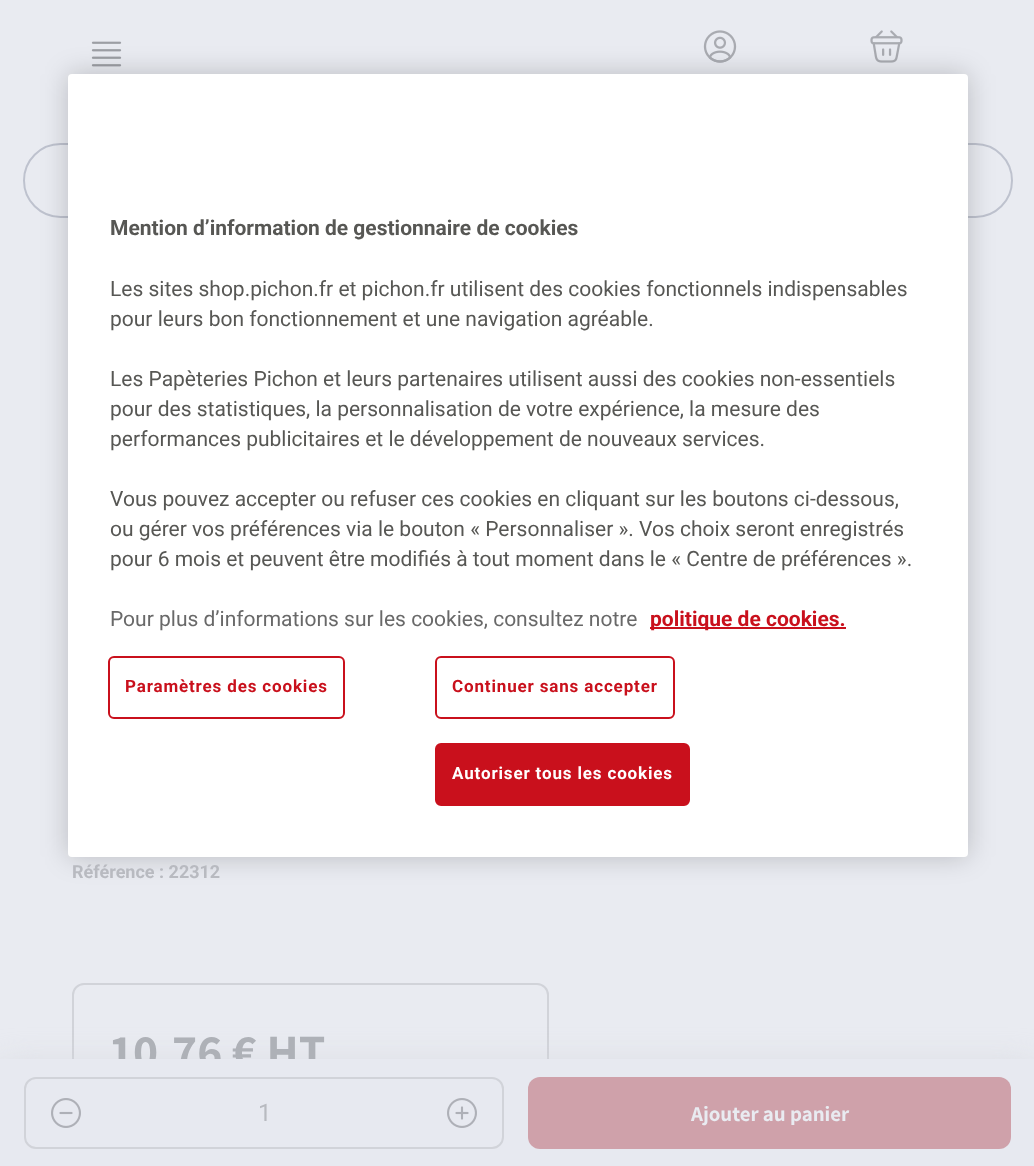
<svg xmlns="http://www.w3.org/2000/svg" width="1034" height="1166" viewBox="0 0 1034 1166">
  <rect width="100%" height="100%" fill="#e9ebf1"/>
  <image x="91" y="41" width="31" height="26" href="img/1.png"/>
  <image x="703" y="30" width="34" height="33" href="img/2.png"/>
  <image x="870" y="30" width="33" height="33" href="img/3.png"/>
  <rect x="24" y="144" width="988" height="73" rx="36.5" fill="none" stroke="#bec2ce" stroke-width="2"/>
  <rect x="68" y="74" width="900" height="783" rx="4" fill="#00000033" filter="blur(13.5px)"/>
  <rect x="68" y="74" width="900" height="783" rx="4" fill="#fff"/>
  <path d="M650 627h196v2H650z" fill="#c9101c"/>
  <rect x="109" y="657" width="235" height="61" rx="5" fill="none" stroke="#c9101c" stroke-width="2"/>
  <rect x="436" y="657" width="238" height="61" rx="5" fill="none" stroke="#c9101c" stroke-width="2"/>
  <rect x="436" y="744" width="253" height="61" rx="5" fill="#c9101c" stroke="#c9101c" stroke-width="2"/>
  <rect x="73" y="984" width="475" height="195" rx="11" fill="none" stroke="#d1d3d9" stroke-width="2"/>
  <path d="M0 1071h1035v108H0z" fill="#d1d3d9" filter="blur(18px)"/>
  <text x="110" y="235" font-family="Roboto" font-size="21" font-weight="bold" fill="#575754">Mention d’information de gestionnaire de cookies</text>
  <g font-family="Roboto" font-size="21" fill="#575754">
    <text x="110" y="296">Les sites shop.pichon.fr et pichon.fr utilisent des cookies fonctionnels indispensables</text>
    <text x="110" y="326">pour leurs bon fonctionnement et une navigation agréable.</text>
    <text x="110" y="386">Les Papèteries Pichon et leurs partenaires utilisent aussi des cookies non-essentiels</text>
    <text x="110" y="416">pour des statistiques, la personnalisation de votre expérience, la mesure des</text>
    <text x="110" y="446">performances publicitaires et le développement de nouveaux services.</text>
    <text x="110" y="506">Vous pouvez accepter ou refuser ces cookies en cliquant sur les boutons ci-dessous,</text>
    <text x="110" y="536">ou gérer vos préférences via le bouton « Personnaliser ». Vos choix seront enregistrés</text>
    <text x="110" y="566">pour 6 mois et peuvent être modifiés à tout moment dans le « Centre de préférences ».</text>
  </g>
  <text x="110" y="626" font-family="Roboto" font-size="21" fill="#696969">Pour plus d’informations sur les cookies, consultez notre</text>
  <text x="650" y="626" font-family="Roboto" font-size="21" font-weight="bold" fill="#c9101c">politique de cookies.</text>
  <g font-family="Roboto" font-size="17" font-weight="bold" letter-spacing="0.85" fill="#c9101c">
    <text x="125" y="692">Paramètres des cookies</text>
    <text x="452" y="692">Continuer sans accepter</text>
  </g>
  <text x="452" y="779" font-family="Roboto" font-size="17" font-weight="bold" letter-spacing="0.85" fill="#fff">Autoriser tous les cookies</text>
  <text x="72" y="878" font-family="Roboto" font-size="18" font-weight="bold" fill="#b8bac0">Référence : 22312</text>
  <text x="110" y="1068" font-family="Assistant" font-size="48" font-weight="bold" fill="#aeb1b7">10,76 € HT</text>
  <path d="M0 1059h1034v107H0z" fill="#e7e9f0"/>
  <rect x="25" y="1078" width="478" height="70" rx="11" fill="none" stroke="#d1d3d9" stroke-width="2"/>
  <image x="51" y="1098" width="30" height="30" href="img/4.png"/>
  <text x="258" y="1121" font-family="Roboto" font-size="24" fill="#b8bac0">1</text>
  <image x="447" y="1098" width="30" height="30" href="img/5.png"/>
  <rect x="528" y="1077" width="483" height="72" rx="12" fill="#cfa1aa"/>
  <text x="691" y="1121" font-family="Assistant" font-size="21" font-weight="bold" fill="#e9ebf1">Ajouter au panier</text>
</svg>
